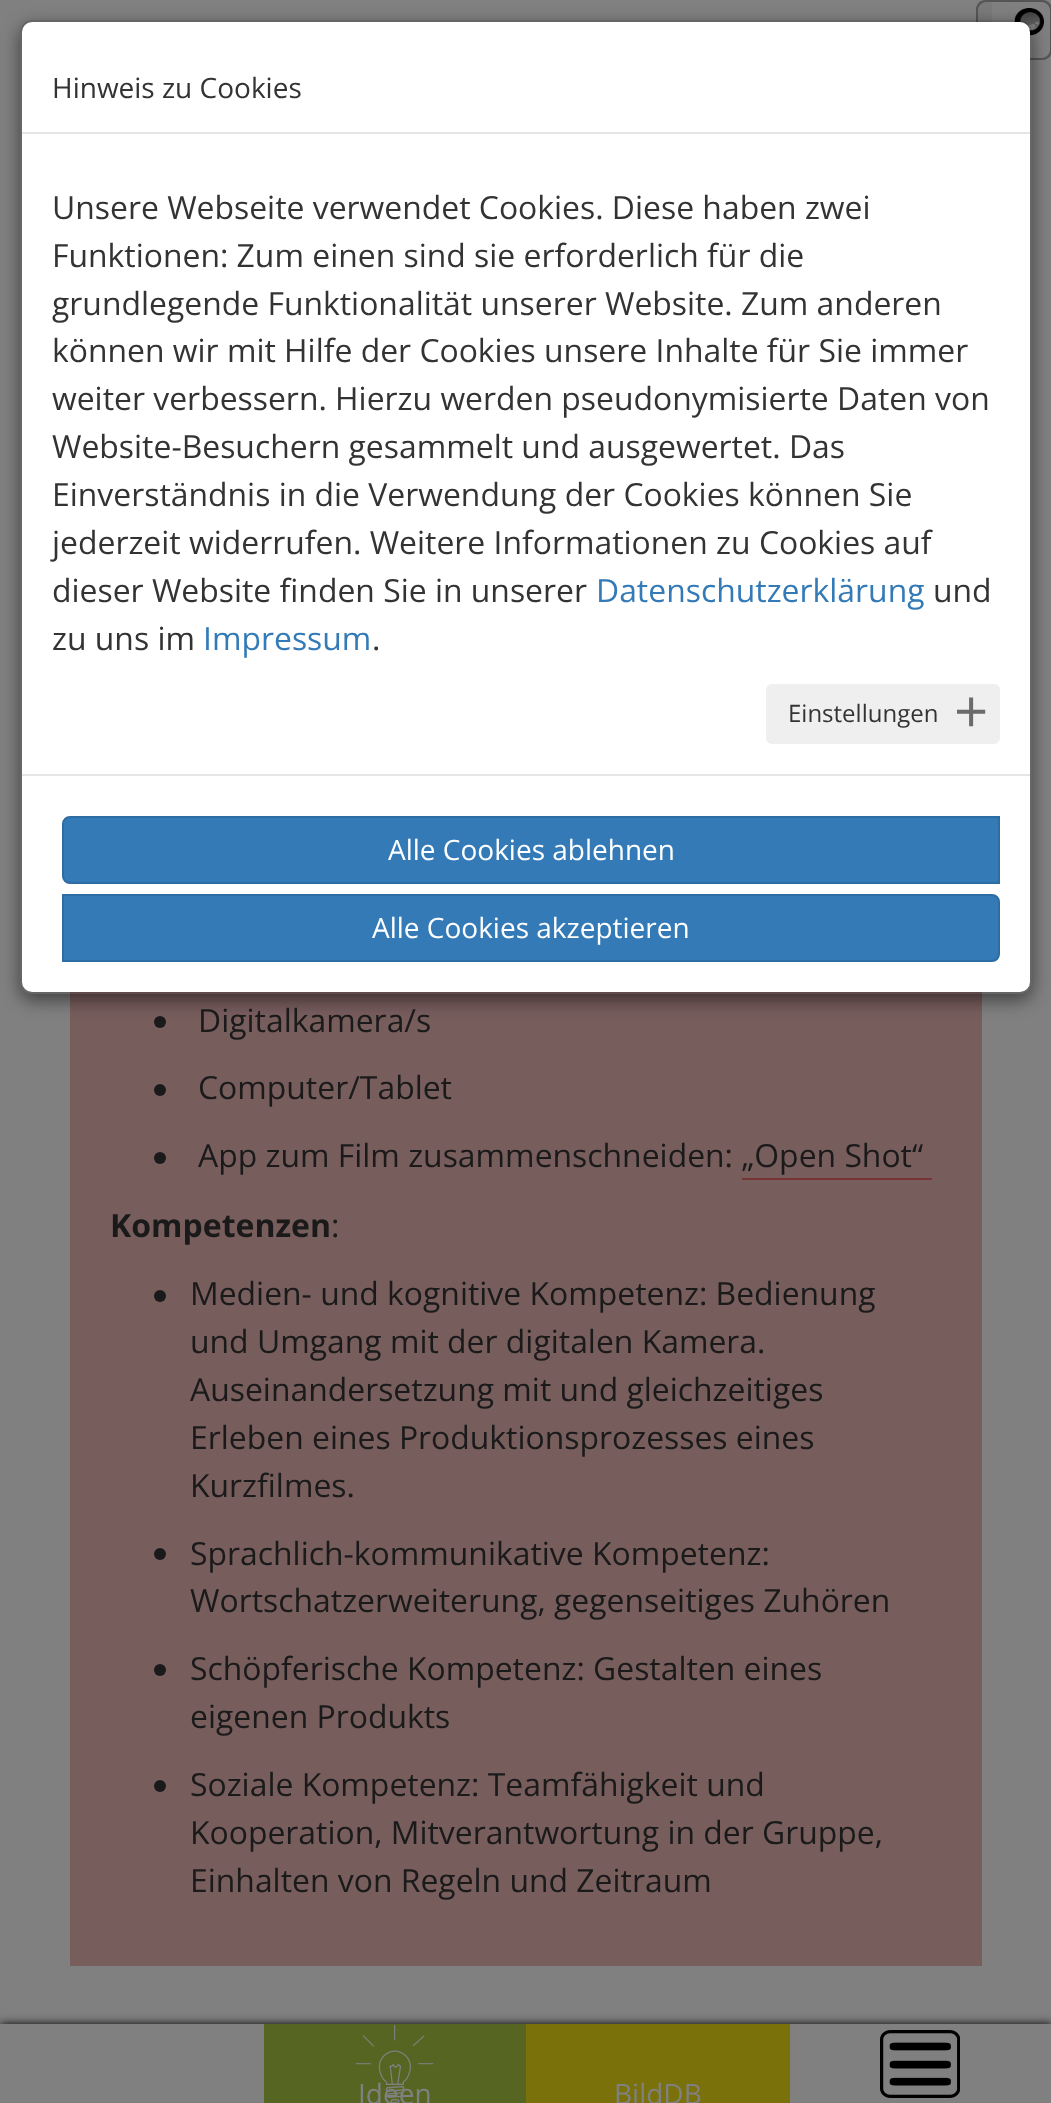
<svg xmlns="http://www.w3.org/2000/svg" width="1051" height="2103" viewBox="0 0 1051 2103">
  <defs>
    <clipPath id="clip1"><path d="M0 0H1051V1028H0ZM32 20H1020C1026.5 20 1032 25.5 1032 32V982C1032 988.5 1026.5 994 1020 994H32C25.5 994 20 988.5 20 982V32C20 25.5 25.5 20 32 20Z" clip-rule="evenodd"/></clipPath>
  </defs>
  <rect width="100%" height="100%" fill="#808080"/>
  <path d="M986 0H992V60H986C980.5 60 976 55.5 976 50V10C976 4.5 980.5 0 986 0Z" fill="#7a7a7a"/>
  <path d="M986 0H992V60H986C980 60 976 56 976 50V10C976 4 980 0 986 0ZM986 2H992V58H986C982 58 978 54 978 50V10C978 6 982 2 986 2Z" fill="#555" fill-rule="evenodd"/>
  <image x="1014" y="8" width="30" height="28" href="img/1.png"/>
  <path d="M992 0H1042C1048 0 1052 4 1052 10V50C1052 56 1048 60 1042 60H992ZM992 2H1042C1046 2 1050 6 1050 10V50C1050 54 1046 58 1042 58H992Z" fill="#555" fill-rule="evenodd"/>
  <path d="M70 992h912v974H70z" fill="#785d5d"/>
  <circle cx="160" cy="1022" r="6" fill="#1a1a1a"/>
  <g clip-path="url(#clip1)">
    <rect x="20" y="26" width="1012" height="974" rx="12" fill="#00000080" filter="blur(9px)"/>
  </g>
  <rect x="22" y="22" width="1008" height="970" rx="10" fill="#fff"/>
  <rect x="21" y="21" width="1010" height="972" rx="11" fill="none" stroke="#00000033" stroke-width="2"/>
  <path d="M22 132h1008v2H22z" fill="#e5e5e5"/>
  <rect x="766" y="684" width="234" height="60" rx="6" fill="#efefef"/>
  <path d="M22 774h1008v2H22z" fill="#e5e5e5"/>
  <path d="M70 817H999V883H70C66 883 63 880 63 876V824C63 820 66 817 70 817Z" fill="#337ab7" stroke="#2e6da4" stroke-width="2"/>
  <path d="M63 895H992C996 895 999 898 999 902V954C999 958 996 961 992 961H63Z" fill="#337ab7" stroke="#2e6da4" stroke-width="2"/>
  <circle cx="160" cy="1090" r="6" fill="#1a1a1a"/>
  <circle cx="160" cy="1158" r="6" fill="#1a1a1a"/>
  <path d="M742 1178h190v2H742z" fill="#763434"/>
  <circle cx="160" cy="1296" r="6" fill="#1a1a1a"/>
  <circle cx="160" cy="1554" r="6" fill="#1a1a1a"/>
  <circle cx="160" cy="1670" r="6" fill="#1a1a1a"/>
  <circle cx="160" cy="1786" r="6" fill="#1a1a1a"/>
  <path d="M0 2024h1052v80H0z" fill="#000" filter="blur(5px)"/>
  <path d="M0 2024h1051v79H0z" fill="#808080"/>
  <path d="M264 2024h262v79H264z" fill="#566622"/>
  <image x="355" y="2025" width="79" height="78" href="img/2.png"/>
  <path d="M526 2024h264v79H526z" fill="#7a710a"/>
  <image x="880" y="2030" width="80" height="68" href="img/3.png"/>
  <text x="52" y="98" font-family="Open Sans" font-size="28" fill="#333">Hinweis zu Cookies</text>
  <g font-family="Open Sans" font-size="31.9" fill="#333">
    <text x="52" y="219">Unsere Webseite verwendet Cookies. Diese haben zwei</text>
    <text x="52" y="267">Funktionen: Zum einen sind sie erforderlich für die</text>
    <text x="52" y="315">grundlegende Funktionalität unserer Website. Zum anderen</text>
    <text x="52" y="362">können wir mit Hilfe der Cookies unsere Inhalte für Sie immer</text>
    <text x="52" y="410">weiter verbessern. Hierzu werden pseudonymisierte Daten von</text>
    <text x="52" y="458">Website-Besuchern gesammelt und ausgewertet. Das</text>
    <text x="52" y="506">Einverständnis in die Verwendung der Cookies können Sie</text>
    <text x="52" y="554">jederzeit widerrufen. Weitere Informationen zu Cookies auf</text>
    <text x="52" y="602">dieser Website finden Sie in unserer</text>
  </g>
  <text x="596" y="602" font-family="Open Sans" font-size="31.9" fill="#337ab7">Datenschutzerklärung</text>
  <g font-family="Open Sans" font-size="31.9" fill="#333">
    <text x="933" y="602">und</text>
    <text x="52" y="650">zu uns im</text>
  </g>
  <text x="203" y="650" font-family="Open Sans" font-size="31.9" fill="#337ab7">Impressum</text>
  <text x="372" y="650" font-family="Open Sans" font-size="31.9" fill="#333">.</text>
  <text x="788" y="722" font-family="Open Sans" font-size="24" fill="#333">Einstellungen</text>
  <text x="954" y="733" font-family="Open Sans" font-size="60" fill="#6b6b6b">+</text>
  <g font-family="Open Sans" font-size="28" fill="#fff">
    <text x="388" y="860">Alle Cookies ablehnen</text>
    <text x="372" y="938">Alle Cookies akzeptieren</text>
  </g>
  <g font-family="Open Sans" font-size="31.9" fill="#1a1a1a">
    <text x="198" y="1032">Digitalkamera/s</text>
    <text x="198" y="1099">Computer/Tablet</text>
    <text x="198" y="1167">App zum Film zusammenschneiden: „Open Shot“</text>
  </g>
  <text x="110" y="1237" font-family="Open Sans" font-size="32" font-weight="bold" fill="#1a1a1a">Kompetenzen</text>
  <text x="331" y="1237" font-family="Open Sans" font-size="32" fill="#1a1a1a">:</text>
  <g font-family="Open Sans" font-size="31.9" fill="#1a1a1a">
    <text x="190" y="1305">Medien- und kognitive Kompetenz: Bedienung</text>
    <text x="190" y="1353">und Umgang mit der digitalen Kamera.</text>
    <text x="190" y="1401">Auseinandersetzung mit und gleichzeitiges</text>
    <text x="190" y="1449">Erleben eines Produktionsprozesses eines</text>
    <text x="190" y="1497">Kurzfilmes.</text>
    <text x="190" y="1565">Sprachlich-kommunikative Kompetenz:</text>
    <text x="190" y="1612">Wortschatzerweiterung, gegenseitiges Zuhören</text>
    <text x="190" y="1680">Schöpferische Kompetenz: Gestalten eines</text>
    <text x="190" y="1728">eigenen Produkts</text>
    <text x="190" y="1796">Soziale Kompetenz: Teamfähigkeit und</text>
    <text x="190" y="1844">Kooperation, Mitverantwortung in der Gruppe,</text>
    <text x="190" y="1892">Einhalten von Regeln und Zeitraum</text>
  </g>
  <g font-family="Open Sans" font-size="28" fill="#808080">
    <text x="358" y="2104">Ideen</text>
    <text x="614" y="2104">BildDB</text>
  </g>
</svg>
